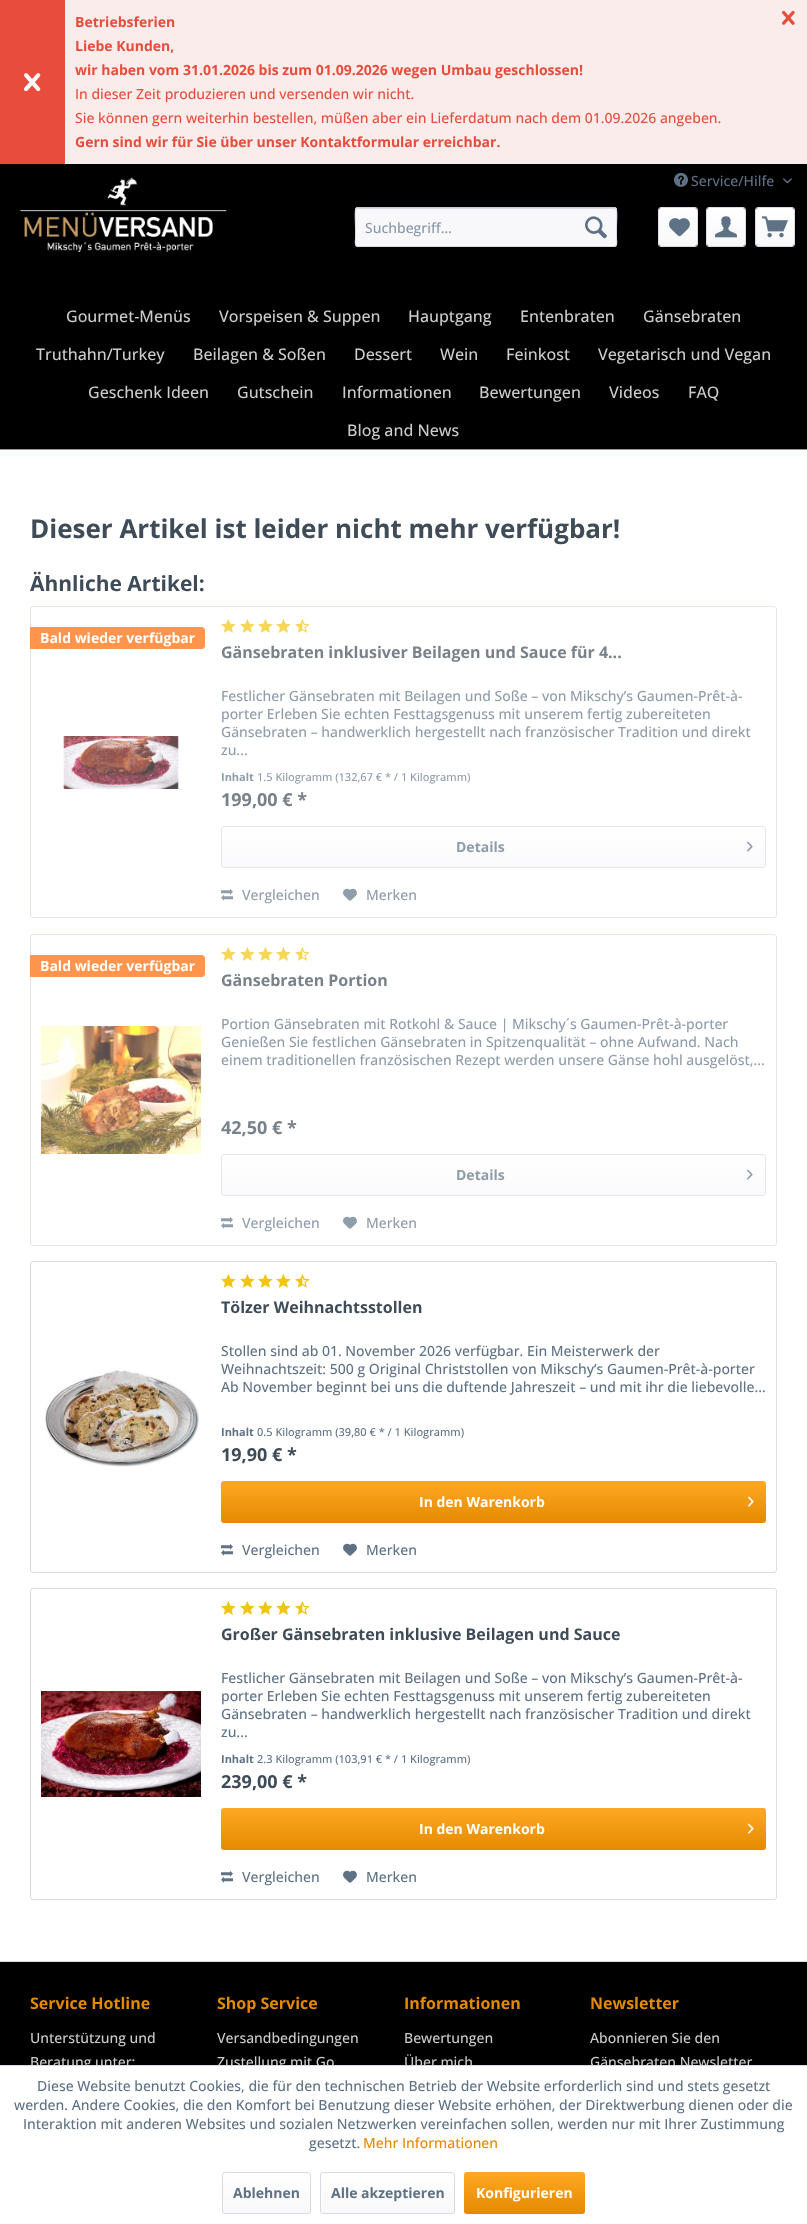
<svg xmlns="http://www.w3.org/2000/svg" width="807" height="2224" viewBox="0 0 807 2224">
  <defs>
    <linearGradient id="g1" gradientUnits="userSpaceOnUse" x1="678" y1="208" x2="678" y2="246"><stop offset="0" stop-color="#fff"/><stop offset="1" stop-color="#f8f8fa"/></linearGradient>
    <linearGradient id="g2" gradientUnits="userSpaceOnUse" x1="726" y1="208" x2="726" y2="246"><stop offset="0" stop-color="#fff"/><stop offset="1" stop-color="#f8f8fa"/></linearGradient>
    <linearGradient id="g3" gradientUnits="userSpaceOnUse" x1="775" y1="208" x2="775" y2="246"><stop offset="0" stop-color="#fff"/><stop offset="1" stop-color="#f8f8fa"/></linearGradient>
    <linearGradient id="g4" gradientUnits="userSpaceOnUse" x1="494" y1="827" x2="494" y2="867"><stop offset="0" stop-color="#fff"/><stop offset="1" stop-color="#fafafc"/></linearGradient>
    <linearGradient id="g5" gradientUnits="userSpaceOnUse" x1="494" y1="1155" x2="494" y2="1195"><stop offset="0" stop-color="#fff"/><stop offset="1" stop-color="#fafafc"/></linearGradient>
    <linearGradient id="g6" gradientUnits="userSpaceOnUse" x1="494" y1="1481" x2="494" y2="1523"><stop offset="0" stop-color="#ffa823"/><stop offset="1" stop-color="#e58a00"/></linearGradient>
    <linearGradient id="g7" gradientUnits="userSpaceOnUse" x1="494" y1="1808" x2="494" y2="1850"><stop offset="0" stop-color="#ffa823"/><stop offset="1" stop-color="#e58a00"/></linearGradient>
    <linearGradient id="g8" gradientUnits="userSpaceOnUse" x1="267" y1="2173" x2="267" y2="2213"><stop offset="0" stop-color="#fff"/><stop offset="1" stop-color="#f8f8fa"/></linearGradient>
    <linearGradient id="g9" gradientUnits="userSpaceOnUse" x1="388" y1="2173" x2="388" y2="2213"><stop offset="0" stop-color="#fff"/><stop offset="1" stop-color="#f8f8fa"/></linearGradient>
    <linearGradient id="g10" gradientUnits="userSpaceOnUse" x1="525" y1="2172" x2="525" y2="2214"><stop offset="0" stop-color="#ffa823"/><stop offset="1" stop-color="#e58a00"/></linearGradient>
  </defs>
  <rect width="100%" height="100%" fill="#000"/>
  <path d="M65 0h742v164H65z" fill="#faeceb"/>
  <path d="M0 0h65v164H0z" fill="#e74c3c"/>
  <image x="24" y="73" width="17" height="19" href="img/1.png"/>
  <image x="782" y="10" width="13" height="15" href="img/2.png"/>
  <image x="674" y="172" width="14" height="15" href="img/3.png"/>
  <image x="783" y="178" width="9" height="6" href="img/4.png"/>
  <image x="20" y="177" width="207" height="75" href="img/5.png"/>
  <rect x="355" y="207" width="262" height="40" rx="3" fill="#f8f8fa"/>
  <path d="M358 209H614C615 209 616 210 616 211V210C616 209 615 208 614 208H358C357 208 356 209 356 210V211C356 210 357 209 358 209Z" fill="#dadae5"/>
  <path d="M356 208L358 207.5H614L616 208" fill="none" stroke="#cbcbdb"/>
  <path d="M616 208C617.5 210 616.5 224 616.5 227V238.5C616.5 240 618 246.5 614 246.5H358C354 246.5 355.5 240 355.5 238.5V227C355.5 224 354.5 210 356 208" fill="none" stroke="#dadae5"/>
  <image x="585" y="216" width="22" height="23" href="img/6.png"/>
  <rect x="659" y="208" width="38" height="38" rx="2" fill="url(#g1)"/>
  <rect x="658.5" y="207.5" width="39" height="39" rx="2.5" fill="none" stroke="#dadae5"/>
  <image x="669" y="218" width="21" height="19" href="img/7.png"/>
  <rect x="707" y="208" width="38" height="38" rx="2" fill="url(#g2)"/>
  <rect x="706.5" y="207.5" width="39" height="39" rx="2.5" fill="none" stroke="#dadae5"/>
  <image x="715" y="216" width="22" height="22" href="img/8.png"/>
  <rect x="756" y="208" width="38" height="38" rx="2" fill="url(#g3)"/>
  <rect x="755.5" y="207.5" width="39" height="39" rx="2.5" fill="none" stroke="#dadae5"/>
  <image x="762" y="216" width="26" height="22" href="img/9.png"/>
  <path d="M0 449h807v1H0z" fill="#e58a00"/>
  <path d="M0 450h807v1511H0z" fill="#fff"/>
  <rect x="30.5" y="606.5" width="746" height="311" rx="2.5" fill="none" stroke="#e5e5ed"/>
  <path d="M30 627H202C203.5 627 205 628.5 205 630V646C205 647.5 203.5 649 202 649H30Z" fill="#ff944d"/>
  <image x="221" y="619" width="15" height="14" href="img/10.png"/>
  <image x="240" y="619" width="15" height="14" href="img/10.png"/>
  <image x="258" y="619" width="15" height="14" href="img/10.png"/>
  <image x="276" y="619" width="15" height="14" href="img/10.png"/>
  <image x="295" y="619" width="15" height="14" href="img/11.png"/>
  <image x="63" y="736" width="116" height="53" href="img/12.png"/>
  <rect x="222" y="827" width="543" height="40" rx="2" fill="url(#g4)"/>
  <rect x="221.5" y="826.5" width="544" height="41" rx="2.5" fill="none" stroke="#e5e5ed"/>
  <image x="747" y="841" width="6" height="11" href="img/13.png"/>
  <image x="221" y="889" width="12" height="12" href="img/14.png"/>
  <image x="343" y="888" width="14" height="13" href="img/15.png"/>
  <rect x="30.5" y="934.5" width="746" height="311" rx="2.5" fill="none" stroke="#e5e5ed"/>
  <path d="M30 955H202C203.5 955 205 956.5 205 958V974C205 975.5 203.5 977 202 977H30Z" fill="#ff944d"/>
  <image x="221" y="947" width="15" height="14" href="img/10.png"/>
  <image x="240" y="947" width="15" height="14" href="img/10.png"/>
  <image x="258" y="947" width="15" height="14" href="img/10.png"/>
  <image x="276" y="947" width="15" height="14" href="img/10.png"/>
  <image x="295" y="947" width="15" height="14" href="img/11.png"/>
  <image x="41" y="1026" width="160" height="128" href="img/16.png"/>
  <rect x="222" y="1155" width="543" height="40" rx="2" fill="url(#g5)"/>
  <rect x="221.5" y="1154.5" width="544" height="41" rx="2.5" fill="none" stroke="#e5e5ed"/>
  <image x="747" y="1169" width="6" height="11" href="img/13.png"/>
  <image x="221" y="1217" width="12" height="12" href="img/14.png"/>
  <image x="343" y="1216" width="14" height="13" href="img/15.png"/>
  <rect x="30.5" y="1261.5" width="746" height="311" rx="2.5" fill="none" stroke="#dadae5"/>
  <image x="221" y="1274" width="15" height="14" href="img/17.png"/>
  <image x="240" y="1274" width="15" height="14" href="img/17.png"/>
  <image x="258" y="1274" width="15" height="14" href="img/17.png"/>
  <image x="276" y="1274" width="15" height="14" href="img/17.png"/>
  <image x="295" y="1274" width="15" height="14" href="img/18.png"/>
  <image x="45" y="1370" width="156" height="97" href="img/19.png"/>
  <rect x="221" y="1481" width="545" height="42" rx="3" fill="url(#g6)"/>
  <image x="748" y="1496" width="6" height="11" href="img/20.png"/>
  <image x="221" y="1543" width="12" height="13" href="img/21.png"/>
  <image x="343" y="1543" width="14" height="13" href="img/22.png"/>
  <rect x="30.5" y="1588.5" width="746" height="311" rx="2.5" fill="none" stroke="#dadae5"/>
  <image x="221" y="1601" width="15" height="14" href="img/17.png"/>
  <image x="240" y="1601" width="15" height="14" href="img/17.png"/>
  <image x="258" y="1601" width="15" height="14" href="img/17.png"/>
  <image x="276" y="1601" width="15" height="14" href="img/17.png"/>
  <image x="295" y="1601" width="15" height="14" href="img/18.png"/>
  <image x="41" y="1691" width="160" height="106" href="img/23.png"/>
  <rect x="221" y="1808" width="545" height="42" rx="3" fill="url(#g7)"/>
  <image x="748" y="1823" width="6" height="11" href="img/20.png"/>
  <image x="221" y="1870" width="12" height="13" href="img/21.png"/>
  <image x="343" y="1870" width="14" height="13" href="img/22.png"/>
  <path d="M0 1961h807v1H0z" fill="#dadae5"/>
  <g font-family="Open Sans" font-size="14" font-weight="bold" fill="#e74c3c">
    <text x="75" y="27">Betriebsferien</text>
    <text x="75" y="51">Liebe Kunden,</text>
    <text x="75" y="75">wir haben vom 31.01.2026 bis zum 01.09.2026 wegen Umbau geschlossen!</text>
  </g>
  <g font-family="Open Sans" font-size="14" font-weight="500" fill="#e74c3c">
    <text x="75" y="99">In dieser Zeit produzieren und versenden wir nicht.</text>
    <text x="75" y="123">Sie können gern weiterhin bestellen, müßen aber ein Lieferdatum nach dem 01.09.2026 angeben.</text>
  </g>
  <text x="75" y="147" font-family="Open Sans" font-size="14" font-weight="bold" fill="#e74c3c">Gern sind wir für Sie über unser Kontaktformular erreichbar.</text>
  <text x="691" y="186" font-family="Open Sans" font-size="14" font-weight="500" fill="#5f7285">Service/Hilfe</text>
  <text x="365" y="233" font-family="Open Sans" font-size="14" font-weight="500" fill="#8798a9">Suchbegriff...</text>
  <g font-family="Open Sans" font-size="16" font-weight="500" fill="#ccc">
    <text x="66" y="322">Gourmet-Menüs</text>
    <text x="219" y="322">Vorspeisen &amp; Suppen</text>
    <text x="408" y="322">Hauptgang</text>
    <text x="520" y="322">Entenbraten</text>
    <text x="643" y="322">Gänsebraten</text>
    <text x="36" y="360">Truthahn/Turkey</text>
    <text x="193" y="360">Beilagen &amp; Soßen</text>
    <text x="354" y="360">Dessert</text>
    <text x="440" y="360">Wein</text>
    <text x="506" y="360">Feinkost</text>
    <text x="598" y="360">Vegetarisch und Vegan</text>
    <text x="88" y="398">Geschenk Ideen</text>
    <text x="237" y="398">Gutschein</text>
    <text x="342" y="398">Informationen</text>
    <text x="479" y="398">Bewertungen</text>
    <text x="609" y="398">Videos</text>
    <text x="688" y="398">FAQ</text>
    <text x="347" y="436">Blog and News</text>
  </g>
  <text x="30" y="538" font-family="Open Sans" font-size="26" font-weight="bold" fill="#3f4c58">Dieser Artikel ist leider nicht mehr verfügbar!</text>
  <text x="30" y="591" font-family="Open Sans" font-size="21" font-weight="bold" fill="#3f4c58">Ähnliche Artikel:</text>
  <text x="40" y="643" font-family="Open Sans" font-size="14" font-weight="bold" fill="#fff">Bald wieder verfügbar</text>
  <text x="221" y="658" font-family="Open Sans" font-size="16" font-weight="bold" fill="#79828a">Gänsebraten inklusiver Beilagen und Sauce für 4...</text>
  <g font-family="Open Sans" font-size="14" font-weight="500" fill="#8f9caa">
    <text x="221" y="701">Festlicher Gänsebraten mit Beilagen und Soße – von Mikschy’s Gaumen-Prêt-à-</text>
    <text x="221" y="719">porter Erleben Sie echten Festtagsgenuss mit unserem fertig zubereiteten</text>
    <text x="221" y="737">Gänsebraten – handwerklich hergestellt nach französischer Tradition und direkt</text>
    <text x="221" y="755">zu...</text>
  </g>
  <text x="221" y="781" font-family="Open Sans" font-size="11" font-weight="bold" fill="#8f9caa">Inhalt</text>
  <text x="257" y="781" font-family="Open Sans" font-size="11" font-weight="500" fill="#8f9caa">1.5 Kilogramm (132,67 € * / 1 Kilogramm)</text>
  <text x="221" y="806" font-family="Open Sans" font-size="18" font-weight="bold" fill="#79828a">199,00 € *</text>
  <text x="456" y="852" font-family="Open Sans" font-size="14" font-weight="bold" fill="#8f9caa">Details</text>
  <g font-family="Open Sans" font-size="14" font-weight="500" fill="#8f9caa">
    <text x="242" y="900">Vergleichen</text>
    <text x="366" y="900">Merken</text>
  </g>
  <text x="40" y="971" font-family="Open Sans" font-size="14" font-weight="bold" fill="#fff">Bald wieder verfügbar</text>
  <text x="221" y="986" font-family="Open Sans" font-size="16" font-weight="bold" fill="#79828a">Gänsebraten Portion</text>
  <g font-family="Open Sans" font-size="14" font-weight="500" fill="#8f9caa">
    <text x="221" y="1029">Portion Gänsebraten mit Rotkohl &amp; Sauce | Mikschy´s Gaumen-Prêt-à-porter</text>
    <text x="221" y="1047">Genießen Sie festlichen Gänsebraten in Spitzenqualität – ohne Aufwand. Nach</text>
    <text x="221" y="1065">einem traditionellen französischen Rezept werden unsere Gänse hohl ausgelöst,...</text>
  </g>
  <text x="221" y="1134" font-family="Open Sans" font-size="18" font-weight="bold" fill="#79828a">42,50 € *</text>
  <text x="456" y="1180" font-family="Open Sans" font-size="14" font-weight="bold" fill="#8f9caa">Details</text>
  <g font-family="Open Sans" font-size="14" font-weight="500" fill="#8f9caa">
    <text x="242" y="1228">Vergleichen</text>
    <text x="366" y="1228">Merken</text>
  </g>
  <text x="221" y="1313" font-family="Open Sans" font-size="16" font-weight="bold" fill="#3f4c58">Tölzer Weihnachtsstollen</text>
  <g font-family="Open Sans" font-size="14" font-weight="500" fill="#5f7285">
    <text x="221" y="1356">Stollen sind ab 01. November 2026 verfügbar. Ein Meisterwerk der</text>
    <text x="221" y="1374">Weihnachtszeit: 500 g Original Christstollen von Mikschy’s Gaumen-Prêt-à-porter</text>
    <text x="221" y="1392">Ab November beginnt bei uns die duftende Jahreszeit – und mit ihr die liebevolle...</text>
  </g>
  <text x="221" y="1436" font-family="Open Sans" font-size="11" font-weight="bold" fill="#5f7285">Inhalt</text>
  <text x="257" y="1436" font-family="Open Sans" font-size="11" font-weight="500" fill="#5f7285">0.5 Kilogramm (39,80 € * / 1 Kilogramm)</text>
  <text x="221" y="1461" font-family="Open Sans" font-size="18" font-weight="bold" fill="#3f4c58">19,90 € *</text>
  <text x="419" y="1507" font-family="Open Sans" font-size="14" font-weight="bold" fill="#fff">In den Warenkorb</text>
  <g font-family="Open Sans" font-size="14" font-weight="500" fill="#5f7285">
    <text x="242" y="1555">Vergleichen</text>
    <text x="366" y="1555">Merken</text>
  </g>
  <text x="221" y="1640" font-family="Open Sans" font-size="16" font-weight="bold" fill="#3f4c58">Großer Gänsebraten inklusive Beilagen und Sauce</text>
  <g font-family="Open Sans" font-size="14" font-weight="500" fill="#5f7285">
    <text x="221" y="1683">Festlicher Gänsebraten mit Beilagen und Soße – von Mikschy’s Gaumen-Prêt-à-</text>
    <text x="221" y="1701">porter Erleben Sie echten Festtagsgenuss mit unserem fertig zubereiteten</text>
    <text x="221" y="1719">Gänsebraten – handwerklich hergestellt nach französischer Tradition und direkt</text>
    <text x="221" y="1737">zu...</text>
  </g>
  <text x="221" y="1763" font-family="Open Sans" font-size="11" font-weight="bold" fill="#5f7285">Inhalt</text>
  <text x="257" y="1763" font-family="Open Sans" font-size="11" font-weight="500" fill="#5f7285">2.3 Kilogramm (103,91 € * / 1 Kilogramm)</text>
  <text x="221" y="1788" font-family="Open Sans" font-size="18" font-weight="bold" fill="#3f4c58">239,00 € *</text>
  <text x="419" y="1834" font-family="Open Sans" font-size="14" font-weight="bold" fill="#fff">In den Warenkorb</text>
  <g font-family="Open Sans" font-size="14" font-weight="500" fill="#5f7285">
    <text x="242" y="1882">Vergleichen</text>
    <text x="366" y="1882">Merken</text>
  </g>
  <text x="30" y="2009" font-family="Open Sans" font-size="16" font-weight="bold" fill="#e58a00">Service Hotline</text>
  <g font-family="Open Sans" font-size="14" font-weight="500" fill="#ccc">
    <text x="30" y="2043">Unterstützung und</text>
    <text x="30" y="2067">Beratung unter:</text>
  </g>
  <text x="217" y="2009" font-family="Open Sans" font-size="16" font-weight="bold" fill="#e58a00">Shop Service</text>
  <g font-family="Open Sans" font-size="14" font-weight="500" fill="#ccc">
    <text x="217" y="2043">Versandbedingungen</text>
    <text x="217" y="2067">Zustellung mit Go</text>
  </g>
  <text x="404" y="2009" font-family="Open Sans" font-size="16" font-weight="bold" fill="#e58a00">Informationen</text>
  <g font-family="Open Sans" font-size="14" font-weight="500" fill="#ccc">
    <text x="404" y="2043">Bewertungen</text>
    <text x="404" y="2067">Über mich</text>
  </g>
  <text x="590" y="2009" font-family="Open Sans" font-size="16" font-weight="bold" fill="#e58a00">Newsletter</text>
  <g font-family="Open Sans" font-size="14" font-weight="500" fill="#ccc">
    <text x="590" y="2043">Abonnieren Sie den</text>
    <text x="590" y="2067">Gänsebraten Newsletter</text>
  </g>
  <path d="M0 2066h807v158H0z" fill="#fff"/>
  <path d="M0 2065h807v1H0z" fill="#dadae5"/>
  <g font-family="Open Sans" font-size="14" font-weight="500" fill="#5f7285">
    <text x="37" y="2091">Diese Website benutzt Cookies, die für den technischen Betrieb der Website erforderlich sind und stets gesetzt</text>
    <text x="14" y="2110">werden. Andere Cookies, die den Komfort bei Benutzung dieser Website erhöhen, der Direktwerbung dienen oder die</text>
    <text x="23" y="2129">Interaktion mit anderen Websites und sozialen Netzwerken vereinfachen sollen, werden nur mit Ihrer Zustimmung</text>
    <text x="309" y="2148">gesetzt.</text>
  </g>
  <text x="363" y="2148" font-family="Open Sans" font-size="14" font-weight="500" fill="#e58a00">Mehr Informationen</text>
  <rect x="223" y="2173" width="87" height="40" rx="2" fill="url(#g8)"/>
  <rect x="222.5" y="2172.5" width="88" height="41" rx="2.5" fill="none" stroke="#dadae5"/>
  <text x="233" y="2198" font-family="Open Sans" font-size="14" font-weight="bold" fill="#5f7285">Ablehnen</text>
  <rect x="321" y="2173" width="133" height="40" rx="2" fill="url(#g9)"/>
  <rect x="320.5" y="2172.5" width="134" height="41" rx="2.5" fill="none" stroke="#dadae5"/>
  <text x="331" y="2198" font-family="Open Sans" font-size="14" font-weight="bold" fill="#5f7285">Alle akzeptieren</text>
  <rect x="464" y="2172" width="121" height="42" rx="3" fill="url(#g10)"/>
  <text x="476" y="2198" font-family="Open Sans" font-size="14" font-weight="bold" fill="#fff">Konfigurieren</text>
</svg>
